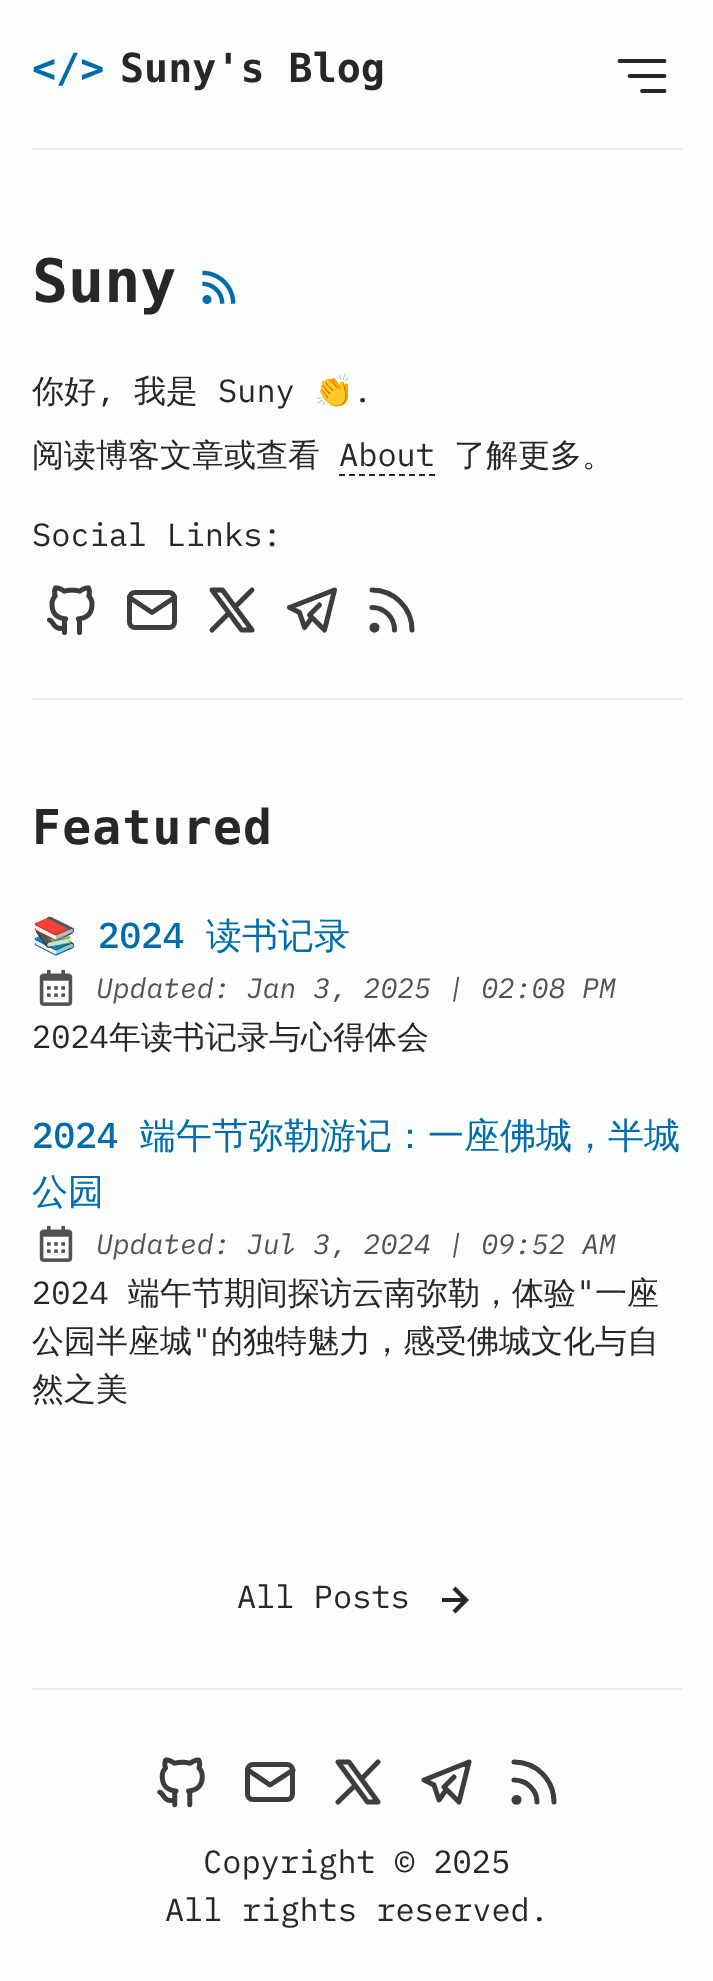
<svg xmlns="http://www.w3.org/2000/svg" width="713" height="1981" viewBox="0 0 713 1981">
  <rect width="100%" height="100%" fill="#fbfefb"/>
  <path d="M629.5 76H664.5M619.5 61H664.5M642 91H664.5" fill="none" stroke="#282728" stroke-width="3.8" stroke-linecap="round" stroke-linejoin="round"/>
  <path d="M32 148h650v2H32z" fill="#ece9e9"/>
  <image x="202" y="270" width="34" height="34" href="img/1.png"/>
  <path d="M339 475H435" fill="none" stroke="#282728" stroke-width="2" stroke-dasharray="6 4"/>
  <image x="47" y="585" width="48" height="51" href="img/2.png"/>
  <rect x="129.5" y="592.5" width="45" height="35" rx="5.5" fill="none" stroke="#3d3d3d" stroke-width="5"/>
  <path d="M129.5 597.5L152 612.5L174.5 597.5" fill="none" stroke="#3d3d3d" stroke-width="5" stroke-linecap="round" stroke-linejoin="round"/>
  <path d="M212 590L241.5 630H252L222.5 590ZM212 630L229 613M235 607L252 590" fill="none" stroke="#3d3d3d" stroke-width="5" stroke-linecap="round" stroke-linejoin="round"/>
  <path d="M319.5 605L309.5 615L324.5 630L334.5 590L289.5 607.5L299.5 612.5L304.5 627.5L312 617.5" fill="none" stroke="#3d3d3d" stroke-width="5" stroke-linecap="round" stroke-linejoin="round"/>
  <path d="M372 627.5C372 631 377 631 377 627.5C377 624.5 372 624.5 372 627.5M372 590C394 590 412 608 412 630M372 607.5C384.5 607.5 394.5 617.5 394.5 630" fill="none" stroke="#3d3d3d" stroke-width="5" stroke-linecap="round" stroke-linejoin="round"/>
  <path d="M32 698h650v2H32z" fill="#ece9e9"/>
  <image x="39" y="969" width="34" height="37" href="img/3.png"/>
  <image x="39" y="1225" width="34" height="37" href="img/3.png"/>
  <path d="M452.5 1610.5L455.5 1613.5L469 1600L455.5 1586.5L452.5 1589.5L461 1598H442V1602H461Z" fill="#282728"/>
  <path d="M32 1688h650v2H32z" fill="#ece9e9"/>
  <image x="157" y="1757" width="48" height="51" href="img/4.png"/>
  <rect x="247.5" y="1764.5" width="45" height="35" rx="5.5" fill="none" stroke="#3d3d3d" stroke-width="5"/>
  <path d="M248 1770L270 1785L293 1770" fill="none" stroke="#3d3d3d" stroke-width="5" stroke-linecap="round" stroke-linejoin="round"/>
  <path d="M338 1762L367.5 1802H378L349 1762ZM338 1802L355 1785.5M361.5 1779L378 1762" fill="none" stroke="#3d3d3d" stroke-width="5" stroke-linecap="round" stroke-linejoin="round"/>
  <path d="M454 1777L444 1787L459 1802L469 1762L424 1780L434 1785L439 1800L446 1790" fill="none" stroke="#3d3d3d" stroke-width="5" stroke-linecap="round" stroke-linejoin="round"/>
  <path d="M514 1800C514 1803 519 1803 519 1800C519.5 1796.5 514 1796.5 514 1800M514 1762C536.5 1762 554 1780 554 1802M514 1780C526.5 1780 537 1790 537 1802" fill="none" stroke="#3d3d3d" stroke-width="5" stroke-linecap="round" stroke-linejoin="round"/>
  <text x="32" y="82" font-family="DejaVu Sans Mono" font-size="40" font-weight="bold" fill="#006cac">&lt;/&gt;</text>
  <text x="120" y="82" font-family="DejaVu Sans Mono" font-size="40" font-weight="bold" fill="#282728">Suny's Blog</text>
  <text x="32" y="302" font-family="DejaVu Sans Mono" font-size="60" font-weight="bold" fill="#282728">Suny</text>
  <text x="32" y="402" font-family="WenQuanYi Zen Hei" font-size="32" font-weight="500" fill="#282728">你好</text>
  <text x="96" y="402" font-family="IBM Plex Mono" font-size="32" fill="#282728">,</text>
  <text x="134" y="402" font-family="WenQuanYi Zen Hei" font-size="32" font-weight="500" fill="#282728">我是</text>
  <text x="218" y="402" font-family="IBM Plex Mono" font-size="32" fill="#282728">Suny</text>
  <text x="314" y="402" font-family="Noto Color Emoji" font-size="32" fill="#282728">👏</text>
  <text x="353" y="402" font-family="IBM Plex Mono" font-size="32" fill="#282728">.</text>
  <text x="32" y="466" font-family="WenQuanYi Zen Hei" font-size="32" font-weight="500" fill="#282728">阅读博客文章或查看</text>
  <text x="339" y="466" font-family="IBM Plex Mono" font-size="32" fill="#282728">About</text>
  <text x="454" y="466" font-family="WenQuanYi Zen Hei" font-size="32" font-weight="500" fill="#282728">了解更多。</text>
  <text x="32" y="546" font-family="IBM Plex Mono" font-size="32" fill="#282728">Social Links:</text>
  <text x="32" y="844" font-family="DejaVu Sans Mono" font-size="48" font-weight="bold" letter-spacing="1.25" fill="#282728">Featured</text>
  <text x="32" y="948" font-family="Noto Color Emoji" font-size="36" fill="#006cac">📚</text>
  <text x="98" y="948" font-family="IBM Plex Mono" font-size="36" font-weight="500" fill="#006cac">2024</text>
  <text x="206" y="948" font-family="WenQuanYi Zen Hei" font-size="36" font-weight="500" fill="#006cac">读书记录</text>
  <g font-family="IBM Plex Mono" font-size="28" font-style="italic" fill="#525252">
    <text x="96" y="998">Updated:</text>
    <text x="246" y="998">Jan 3, 2025 | 02:08 PM</text>
  </g>
  <text x="32" y="1048" font-family="IBM Plex Mono" font-size="32" fill="#282728">2024</text>
  <text x="109" y="1048" font-family="WenQuanYi Zen Hei" font-size="32" font-weight="500" fill="#282728">年读书记录与心得体会</text>
  <text x="32" y="1148" font-family="IBM Plex Mono" font-size="36" font-weight="500" fill="#006cac">2024</text>
  <g font-family="WenQuanYi Zen Hei" font-size="36" font-weight="500" fill="#006cac">
    <text x="140" y="1148">端午节弥勒游记：一座佛城，半城</text>
    <text x="32" y="1204">公园</text>
  </g>
  <g font-family="IBM Plex Mono" font-size="28" font-style="italic" fill="#525252">
    <text x="96" y="1254">Updated:</text>
    <text x="246" y="1254">Jul 3, 2024 | 09:52 AM</text>
  </g>
  <text x="32" y="1304" font-family="IBM Plex Mono" font-size="32" fill="#282728">2024</text>
  <text x="128" y="1304" font-family="WenQuanYi Zen Hei" font-size="32" font-weight="500" fill="#282728">端午节期间探访云南弥勒，体验</text>
  <text x="576" y="1304" font-family="IBM Plex Mono" font-size="32" fill="#282728">"</text>
  <g font-family="WenQuanYi Zen Hei" font-size="32" font-weight="500" fill="#282728">
    <text x="595" y="1304">一座</text>
    <text x="32" y="1352">公园半座城</text>
  </g>
  <text x="192" y="1352" font-family="IBM Plex Mono" font-size="32" fill="#282728">"</text>
  <g font-family="WenQuanYi Zen Hei" font-size="32" font-weight="500" fill="#282728">
    <text x="211" y="1352">的独特魅力，感受佛城文化与自</text>
    <text x="32" y="1400">然之美</text>
  </g>
  <g font-family="IBM Plex Mono" font-size="32" fill="#282728">
    <text x="237" y="1608">All Posts</text>
    <text x="203" y="1873">Copyright © 2025</text>
    <text x="165" y="1921">All rights reserved.</text>
  </g>
</svg>
